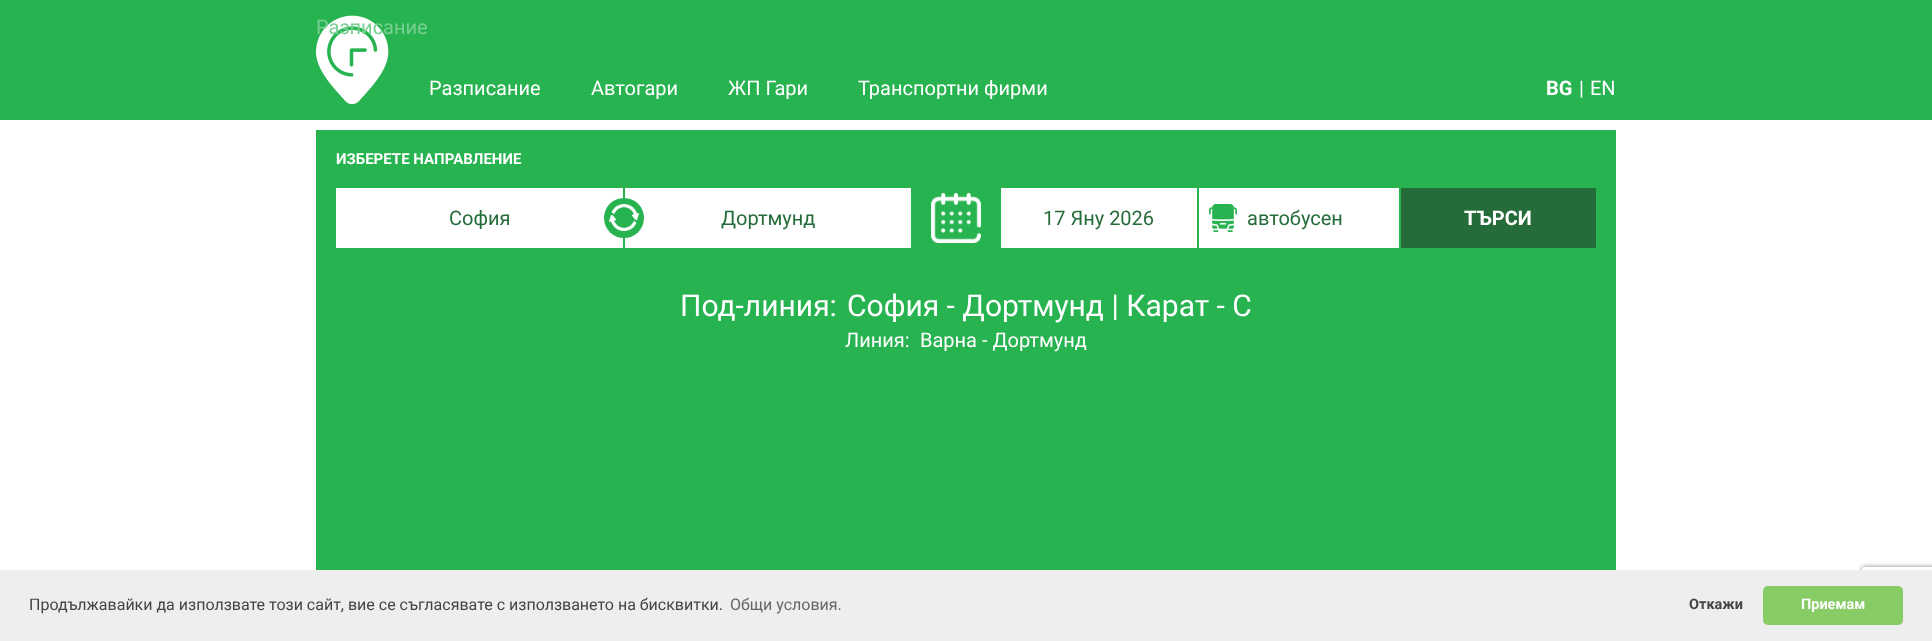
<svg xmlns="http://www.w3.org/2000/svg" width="1932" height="641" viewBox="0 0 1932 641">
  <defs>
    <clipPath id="clip1"><path d="M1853 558H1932V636H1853ZM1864 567H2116C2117 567 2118 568 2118 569V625C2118 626 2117 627 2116 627H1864C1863 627 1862 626 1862 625V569C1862 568 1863 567 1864 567Z" clip-rule="evenodd"/></clipPath>
  </defs>
  <rect width="100%" height="100%" fill="#fff"/>
  <path d="M0 0h1932v120H0z" fill="#28b351"/>
  <image x="316" y="15" width="73" height="90" href="img/1.png"/>
  <path d="M316 130h1300v440H316z" fill="#28b351"/>
  <path d="M336 188h287v60H336z" fill="#fff"/>
  <path d="M625 188h286v60H625z" fill="#fff"/>
  <circle cx="624" cy="218" r="20" fill="#28b351"/>
  <image x="609" y="204" width="30" height="27" href="img/2.png"/>
  <image x="931" y="193" width="50" height="50" href="img/3.png"/>
  <path d="M1001 188h196v60H1001z" fill="#fff"/>
  <path d="M1199 188h200v60H1199z" fill="#fff"/>
  <image x="1209" y="204" width="28" height="28" href="img/4.png"/>
  <path d="M1401 188h195v60H1401z" fill="#256c3a"/>
  <g clip-path="url(#clip1)">
    <rect x="1862" y="567" width="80" height="60" rx="2" fill="#808080" filter="blur(2.5px)"/>
  </g>
  <path d="M0 570h1932v71H0z" fill="#eee"/>
  <rect x="1763" y="586" width="140" height="39" rx="5" fill="#8c6"/>
  <text x="316" y="34" font-family="Roboto" font-size="20" fill="#78cf92">Разписание</text>
  <g font-family="Roboto" font-size="20" fill="#fff">
    <text x="429" y="95">Разписание</text>
    <text x="591" y="95">Автогари</text>
    <text x="728" y="95">ЖП Гари</text>
    <text x="858" y="95">Транспортни фирми</text>
  </g>
  <text x="1546" y="95" font-family="Roboto" font-size="20" font-weight="bold" fill="#fff">BG</text>
  <g font-family="Roboto" font-size="20" fill="#fff">
    <text x="1579" y="95">|</text>
    <text x="1590" y="95">EN</text>
  </g>
  <text x="336" y="164" font-family="Roboto" font-size="15" font-weight="bold" fill="#fff">ИЗБЕРЕТЕ НАПРАВЛЕНИЕ</text>
  <g font-family="Roboto" font-size="20" fill="#256c3a">
    <text x="449" y="225">София</text>
    <text x="721" y="225">Дортмунд</text>
    <text x="1043" y="225">17 Яну 2026</text>
    <text x="1247" y="225">автобусен</text>
  </g>
  <text x="1464" y="225" font-family="Roboto" font-size="20" font-weight="bold" fill="#fff">ТЪРСИ</text>
  <g font-family="Roboto" font-size="30" fill="#fff">
    <text x="680" y="316">Под-линия:</text>
    <text x="847" y="316">София - Дортмунд | Карат - С</text>
  </g>
  <g font-family="Roboto" font-size="20" fill="#fff">
    <text x="845" y="347">Линия:</text>
    <text x="920" y="347">Варна - Дортмунд</text>
  </g>
  <text x="29" y="610" font-family="Roboto" font-size="16" fill="#444">Продължавайки да използвате този сайт, вие се съгласявате с използването на бисквитки.</text>
  <text x="730" y="610" font-family="Roboto" font-size="16" fill="#666">Общи условия.</text>
  <text x="1689" y="609" font-family="Roboto" font-size="14.5" font-weight="bold" fill="#444">Откажи</text>
  <text x="1801" y="609" font-family="Roboto" font-size="14.5" font-weight="bold" fill="#fff">Приемам</text>
</svg>
